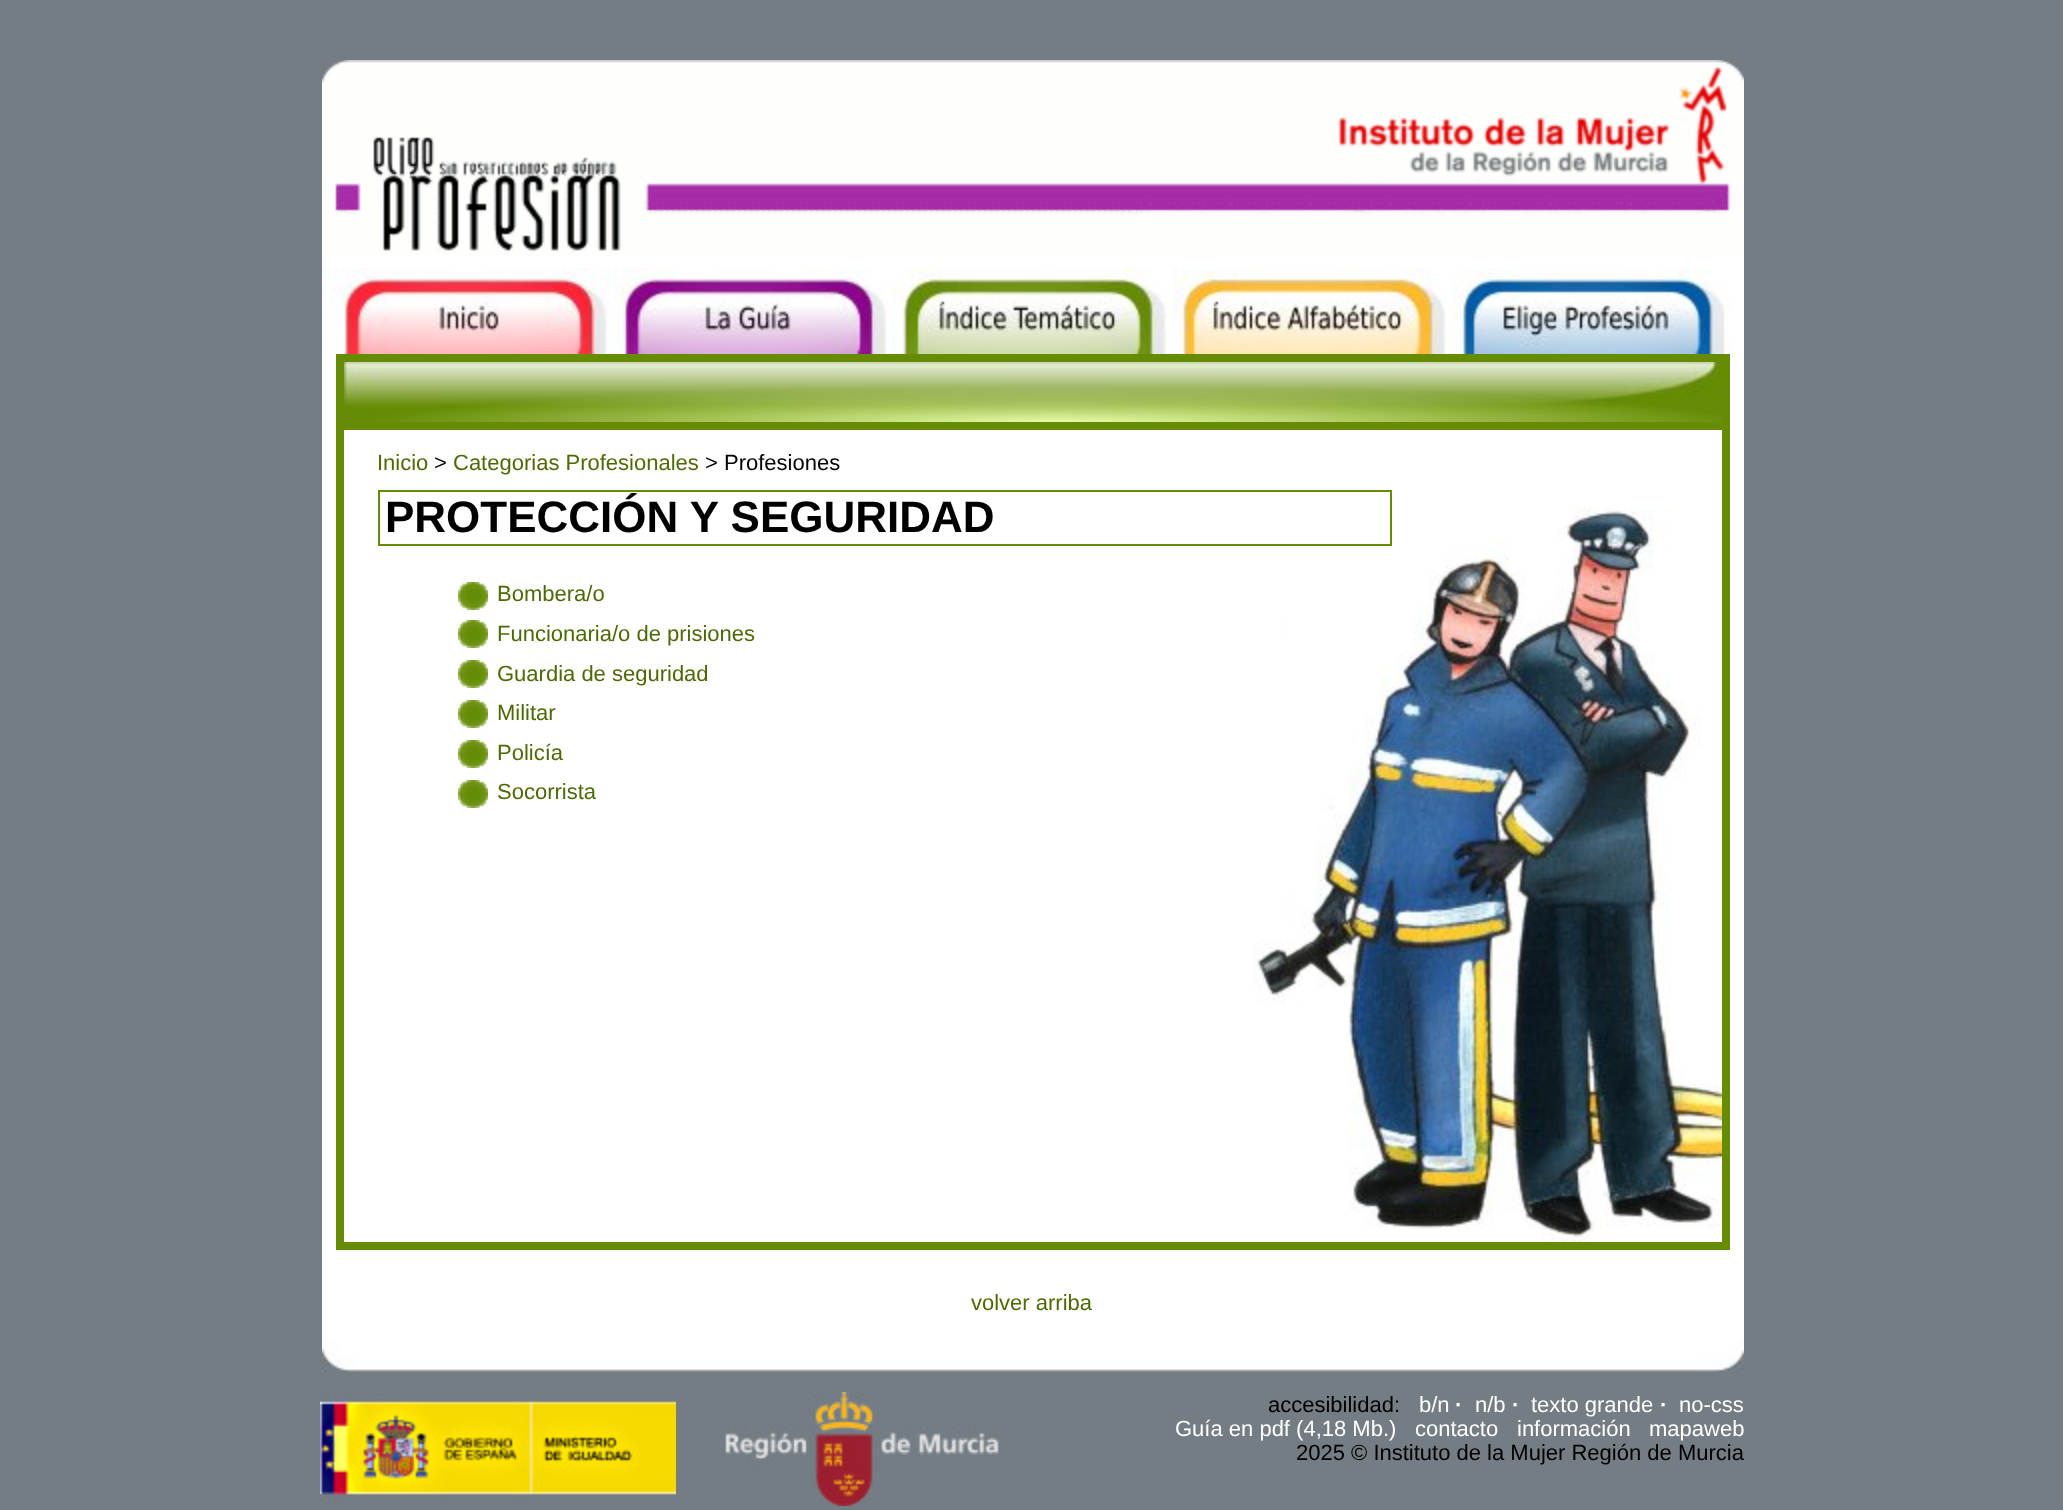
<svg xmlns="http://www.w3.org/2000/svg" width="2063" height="1510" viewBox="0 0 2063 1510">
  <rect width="100%" height="100%" fill="#737d83"/>
  <path d="M322 256h1422v1084H322z" fill="#fff"/>
  <image x="322" y="60" width="1422" height="196" href="img/1.png"/>
  <image x="322" y="268" width="1408" height="86" href="img/2.png"/>
  <image x="322" y="268" width="289" height="65" href="img/3.png"/>
  <image x="614" y="268" width="280" height="86" href="img/4.png"/>
  <image x="894" y="268" width="276" height="86" href="img/5.png"/>
  <image x="1174" y="268" width="280" height="86" href="img/6.png"/>
  <image x="1454" y="268" width="272" height="86" href="img/7.png"/>
  <path d="M336 354h1394v68H336z" fill="#658c04"/>
  <image x="344" y="362" width="1378" height="60" href="img/8.png"/>
  <image x="1254" y="508" width="468" height="734" href="img/9.png"/>
  <path d="M340 426h1386v820H340z" fill="none" stroke="#658c04" stroke-width="8"/>
  <path d="M379 491h1012v54H379z" fill="none" stroke="#658c04" stroke-width="2"/>
  <image x="458" y="582" width="30" height="28" href="img/10.png"/>
  <image x="458" y="620" width="30" height="28" href="img/10.png"/>
  <image x="458" y="660" width="30" height="28" href="img/10.png"/>
  <image x="458" y="700" width="30" height="28" href="img/10.png"/>
  <image x="458" y="740" width="30" height="28" href="img/10.png"/>
  <image x="458" y="780" width="30" height="28" href="img/10.png"/>
  <image x="322" y="1340" width="1422" height="32" href="img/11.png"/>
  <image x="320" y="1392" width="356" height="112" href="img/12.png"/>
  <image x="725" y="1392" width="274" height="114" href="img/13.png"/>
  <text x="377" y="470" font-family="Liberation Sans" font-size="22" fill="#4c6903">Inicio</text>
  <text x="434" y="470" font-family="Liberation Sans" font-size="22" fill="#000">&gt;</text>
  <text x="453" y="470" font-family="Liberation Sans" font-size="22" fill="#4c6903">Categorias Profesionales</text>
  <text x="705" y="470" font-family="Liberation Sans" font-size="22" fill="#000">&gt; Profesiones</text>
  <text x="385" y="532" font-family="Liberation Sans" font-size="44" font-weight="bold" fill="#000">PROTECCIÓN Y SEGURIDAD</text>
  <g font-family="Liberation Sans" font-size="22" fill="#4c6903">
    <text x="497" y="601">Bombera/o</text>
    <text x="497" y="641">Funcionaria/o de prisiones</text>
    <text x="497" y="681">Guardia de seguridad</text>
    <text x="497" y="720">Militar</text>
    <text x="497" y="760">Policía</text>
    <text x="497" y="799">Socorrista</text>
    <text x="971" y="1310">volver arriba</text>
  </g>
  <text x="1268" y="1412" font-family="Liberation Sans" font-size="22" fill="#000">accesibilidad:</text>
  <text x="1419" y="1412" font-family="Liberation Sans" font-size="22" fill="#fff">b/n</text>
  <text x="1455" y="1412" font-family="Liberation Sans" font-size="22" font-weight="bold" fill="#fff">·</text>
  <text x="1475" y="1412" font-family="Liberation Sans" font-size="22" fill="#fff">n/b</text>
  <text x="1512" y="1412" font-family="Liberation Sans" font-size="22" font-weight="bold" fill="#fff">·</text>
  <text x="1531" y="1412" font-family="Liberation Sans" font-size="22" fill="#fff">texto grande</text>
  <text x="1660" y="1412" font-family="Liberation Sans" font-size="22" font-weight="bold" fill="#fff">·</text>
  <g font-family="Liberation Sans" font-size="22" fill="#fff">
    <text x="1679" y="1412">no-css</text>
    <text x="1175" y="1436">Guía en pdf (4,18 Mb.)</text>
    <text x="1415" y="1436">contacto</text>
    <text x="1517" y="1436">información</text>
    <text x="1649" y="1436">mapaweb</text>
  </g>
  <text x="1296" y="1460" font-family="Liberation Sans" font-size="22" fill="#000">2025 © Instituto de la Mujer Región de Murcia</text>
</svg>
